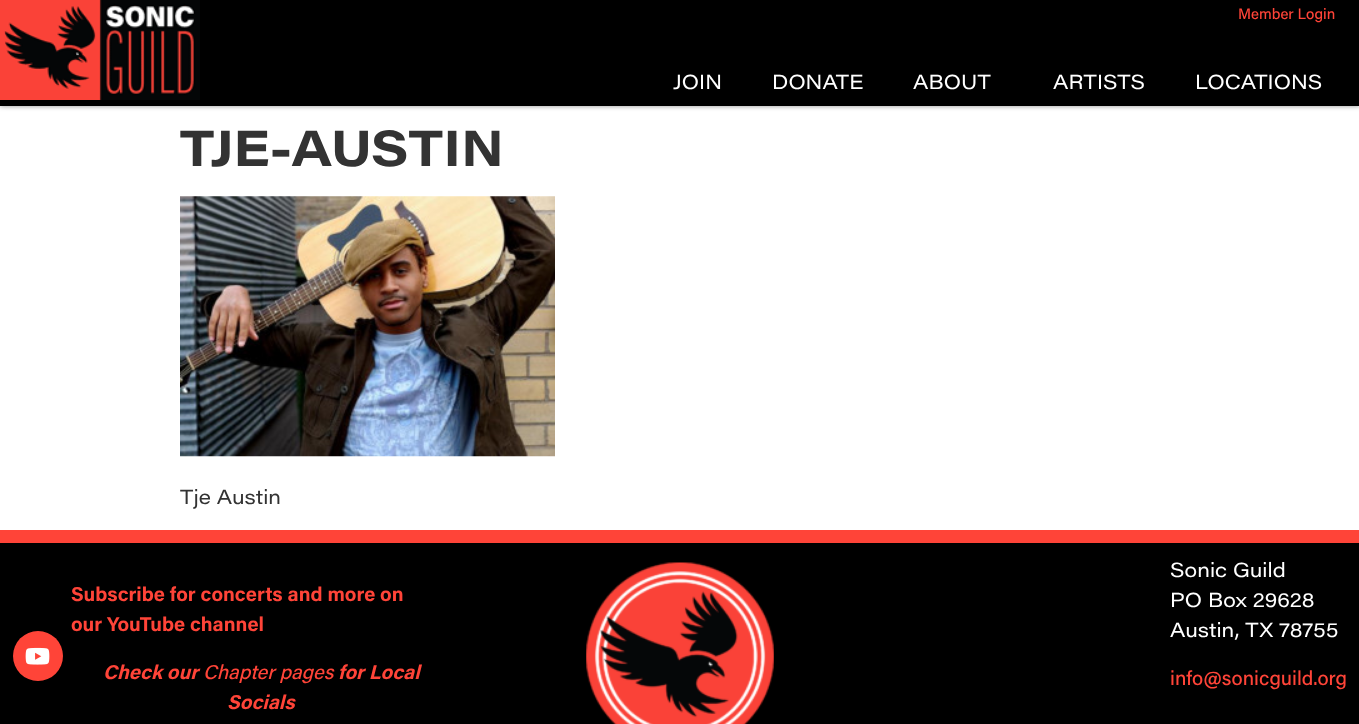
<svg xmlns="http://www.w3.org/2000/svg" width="1359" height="724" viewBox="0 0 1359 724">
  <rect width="100%" height="100%" fill="#fff"/>
  <path d="M0 0h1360v106H0z" fill="#0000006e" filter="blur(2.5px)"/>
  <path d="M200 0h1159v100H200z" fill="#000"/>
  <path d="M0 100h1359v6H0z" fill="#000"/>
  <image x="0" y="0" width="200" height="100" href="img/1.png"/>
  <image x="180" y="196" width="375" height="261" href="img/2.png"/>
  <path d="M0 543h1359v181H0z" fill="#000"/>
  <path d="M0 530h1359v13H0z" fill="#ff4438"/>
  <circle cx="38" cy="656" r="25" fill="#ff4438"/>
  <image x="25" y="647" width="25" height="18" href="img/3.png"/>
  <image x="586" y="562" width="188" height="162" href="img/4.png"/>
  <text x="1238" y="19" font-family="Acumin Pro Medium" font-size="15" font-weight="500" fill="#ff4438">Member Login</text>
  <g font-family="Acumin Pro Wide" font-size="20" fill="#fff">
    <text x="673" y="89">JOIN</text>
    <text x="772" y="89">DONATE</text>
    <text x="913" y="89">ABOUT</text>
    <text x="1053" y="89">ARTISTS</text>
    <text x="1195" y="89">LOCATIONS</text>
  </g>
  <text x="180" y="166" font-family="Acumin Pro Wide" font-size="50" font-weight="bold" fill="#333">TJE-AUSTIN</text>
  <text x="180" y="504" font-family="Acumin Pro Wide" font-size="20" fill="#333">Tje Austin</text>
  <g font-family="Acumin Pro" font-size="20" font-weight="bold" fill="#ff4438">
    <text x="71" y="601">Subscribe for concerts and more on</text>
    <text x="71" y="631">our YouTube channel</text>
  </g>
  <text x="103" y="679" font-family="Acumin Pro" font-size="20" font-weight="bold" font-style="italic" fill="#ff4438">Check our</text>
  <text x="203" y="679" font-family="Acumin Pro Medium" font-size="20" font-weight="500" font-style="italic" fill="#ff4438">Chapter pages</text>
  <g font-family="Acumin Pro" font-size="20" font-weight="bold" font-style="italic" fill="#ff4438">
    <text x="338" y="679">for Local</text>
    <text x="227" y="709">Socials</text>
  </g>
  <g font-family="Acumin Pro Wide" font-size="20" fill="#fff">
    <text x="1170" y="577">Sonic Guild</text>
    <text x="1170" y="607">PO Box 29628</text>
    <text x="1170" y="637">Austin, TX 78755</text>
  </g>
  <text x="1170" y="685" font-family="Acumin Pro Medium" font-size="20" font-weight="500" fill="#ff4438">info@sonicguild.org</text>
</svg>
